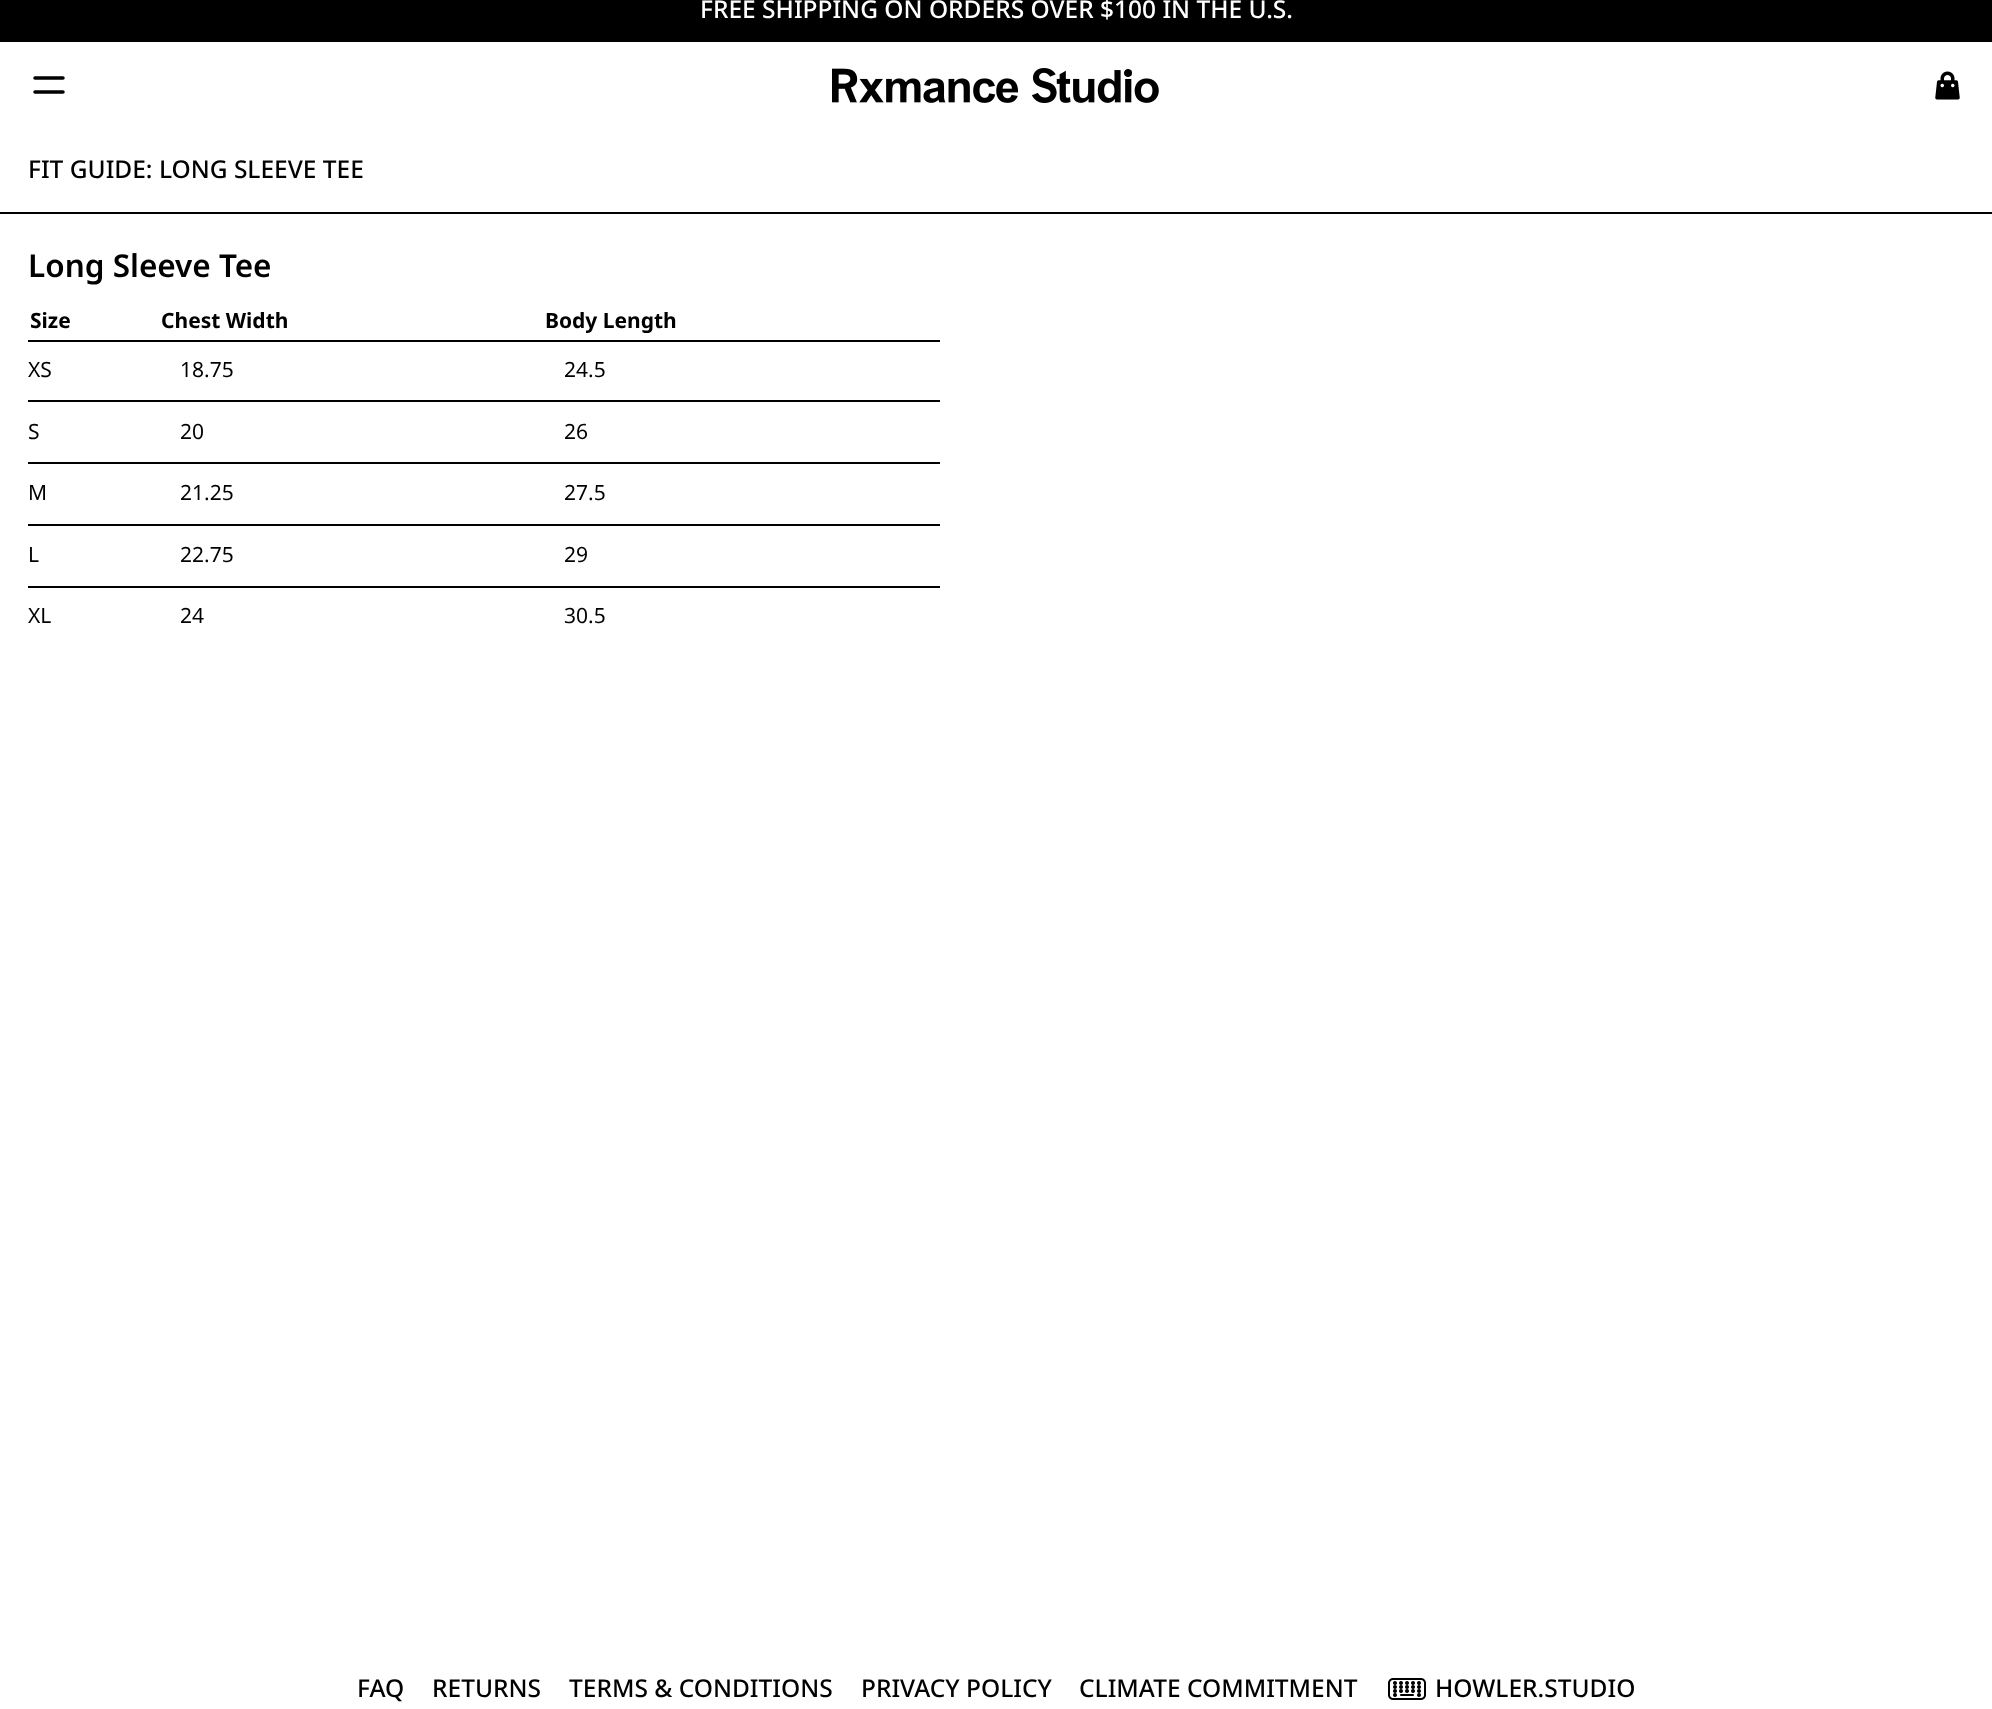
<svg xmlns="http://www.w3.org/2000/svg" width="1992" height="1709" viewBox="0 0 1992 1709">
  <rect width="100%" height="100%" fill="#fff"/>
  <path d="M0 0h1992v42H0z" fill="#000"/>
  <path d="M35 78H63M35 92H63" fill="none" stroke="#000" stroke-width="3.5" stroke-linecap="round" stroke-linejoin="round"/>
  <image x="832" y="68" width="327" height="35" href="img/1.png"/>
  <image x="1935" y="71" width="25" height="29" href="img/2.png"/>
  <path d="M0 212h1992v2H0z" fill="#000"/>
  <path d="M28 340h912v2H28z" fill="#000"/>
  <path d="M28 400h912v2H28z" fill="#000"/>
  <path d="M28 462h912v2H28z" fill="#000"/>
  <path d="M28 524h912v2H28z" fill="#000"/>
  <path d="M28 586h912v2H28z" fill="#000"/>
  <image x="1388" y="1678" width="38" height="22" href="img/3.png"/>
  <text x="700" y="18" font-family="Noto Sans" font-size="24.5" font-weight="500" fill="#fff">FREE SHIPPING ON ORDERS OVER $100 IN THE U.S.</text>
  <text x="28" y="178" font-family="Noto Sans" font-size="24.5" font-weight="500" fill="#000">FIT GUIDE: LONG SLEEVE TEE</text>
  <text x="28" y="277" font-family="Noto Sans" font-size="31.5" font-weight="600" fill="#000">Long Sleeve Tee</text>
  <g font-family="Noto Sans" font-size="21" font-weight="bold" fill="#000">
    <text x="30" y="328">Size</text>
    <text x="161" y="328">Chest Width</text>
    <text x="545" y="328">Body Length</text>
  </g>
  <g font-family="Noto Sans" font-size="21" fill="#000">
    <text x="28" y="377">XS</text>
    <text x="180" y="377">18.75</text>
    <text x="564" y="377">24.5</text>
    <text x="28" y="439">S</text>
    <text x="180" y="439">20</text>
    <text x="564" y="439">26</text>
    <text x="28" y="500">M</text>
    <text x="180" y="500">21.25</text>
    <text x="564" y="500">27.5</text>
    <text x="28" y="562">L</text>
    <text x="180" y="562">22.75</text>
    <text x="564" y="562">29</text>
    <text x="28" y="623">XL</text>
    <text x="180" y="623">24</text>
    <text x="564" y="623">30.5</text>
  </g>
  <g font-family="Noto Sans" font-size="24.5" font-weight="500" fill="#000">
    <text x="357" y="1697">FAQ</text>
    <text x="432" y="1697">RETURNS</text>
    <text x="569" y="1697">TERMS &amp; CONDITIONS</text>
    <text x="861" y="1697">PRIVACY POLICY</text>
    <text x="1079" y="1697">CLIMATE COMMITMENT</text>
    <text x="1435" y="1697">HOWLER.STUDIO</text>
  </g>
</svg>
